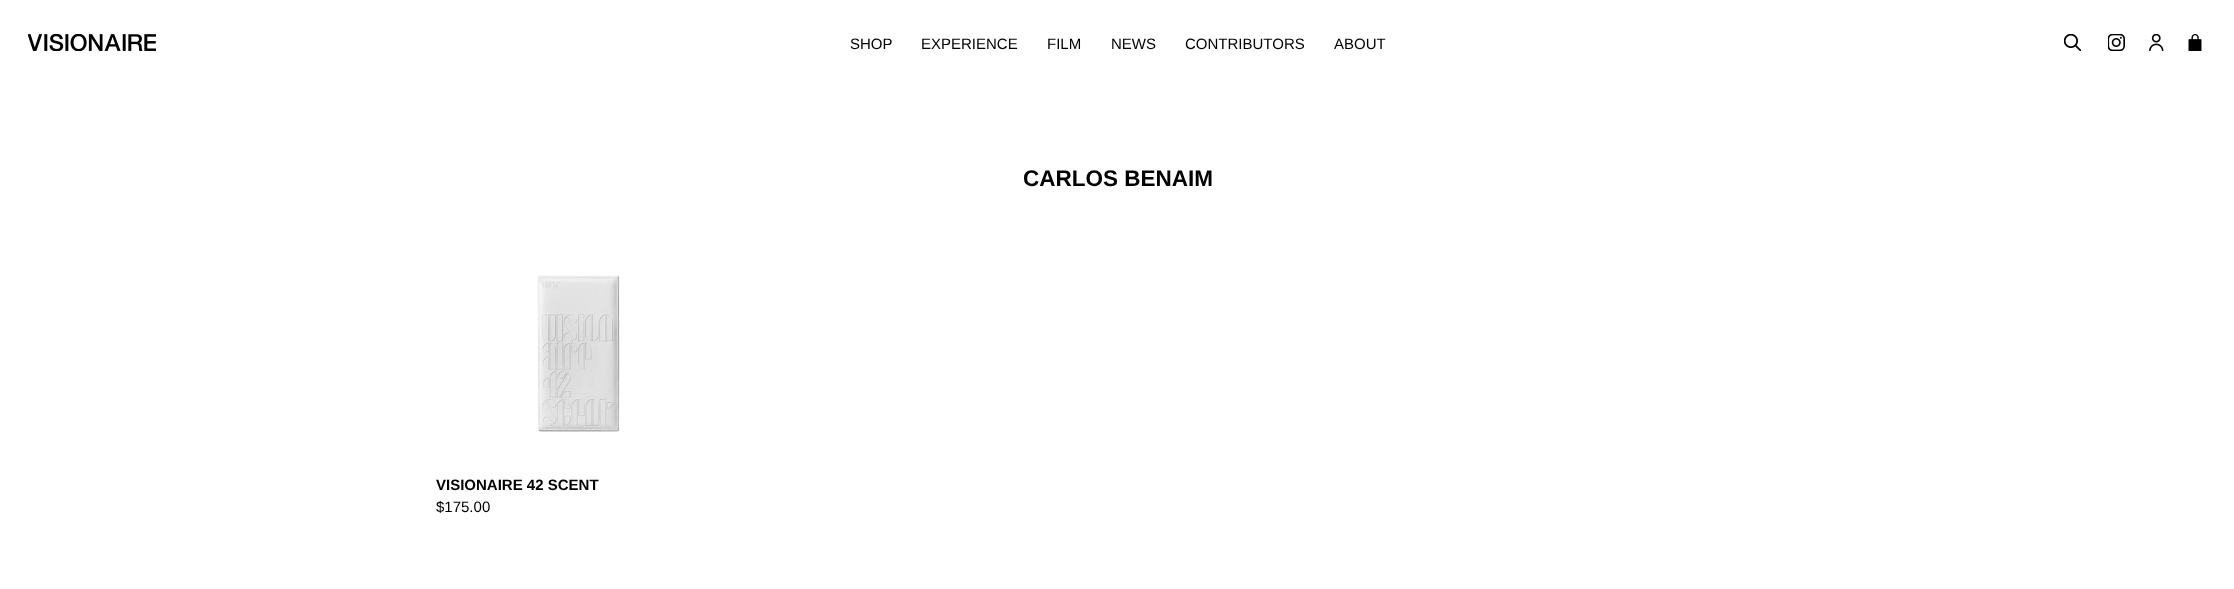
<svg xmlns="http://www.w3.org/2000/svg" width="2234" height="589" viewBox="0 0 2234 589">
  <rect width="100%" height="100%" fill="#fff"/>
  <image x="28" y="34" width="128" height="17" href="img/1.png"/>
  <image x="2064" y="34" width="17" height="17" href="img/2.png"/>
  <image x="2108" y="34" width="17" height="17" href="img/3.png"/>
  <image x="2149" y="34" width="15" height="17" href="img/4.png"/>
  <image x="2188" y="34" width="14" height="17" href="img/5.png"/>
  <image x="537" y="275" width="83" height="157" href="img/6.png"/>
  <g font-family="Liberation Sans" font-size="15" fill="#000">
    <text x="850" y="49">SHOP</text>
    <text x="921" y="49">EXPERIENCE</text>
    <text x="1047" y="49">FILM</text>
    <text x="1111" y="49">NEWS</text>
    <text x="1185" y="49">CONTRIBUTORS</text>
    <text x="1334" y="49">ABOUT</text>
  </g>
  <text x="1023" y="186" font-family="Liberation Sans" font-size="22.5" font-weight="bold" fill="#000">CARLOS BENAIM</text>
  <text x="436" y="490" font-family="Liberation Sans" font-size="15" font-weight="bold" fill="#000">VISIONAIRE 42 SCENT</text>
  <text x="436" y="512" font-family="Liberation Sans" font-size="15" fill="#000">$175.00</text>
</svg>
